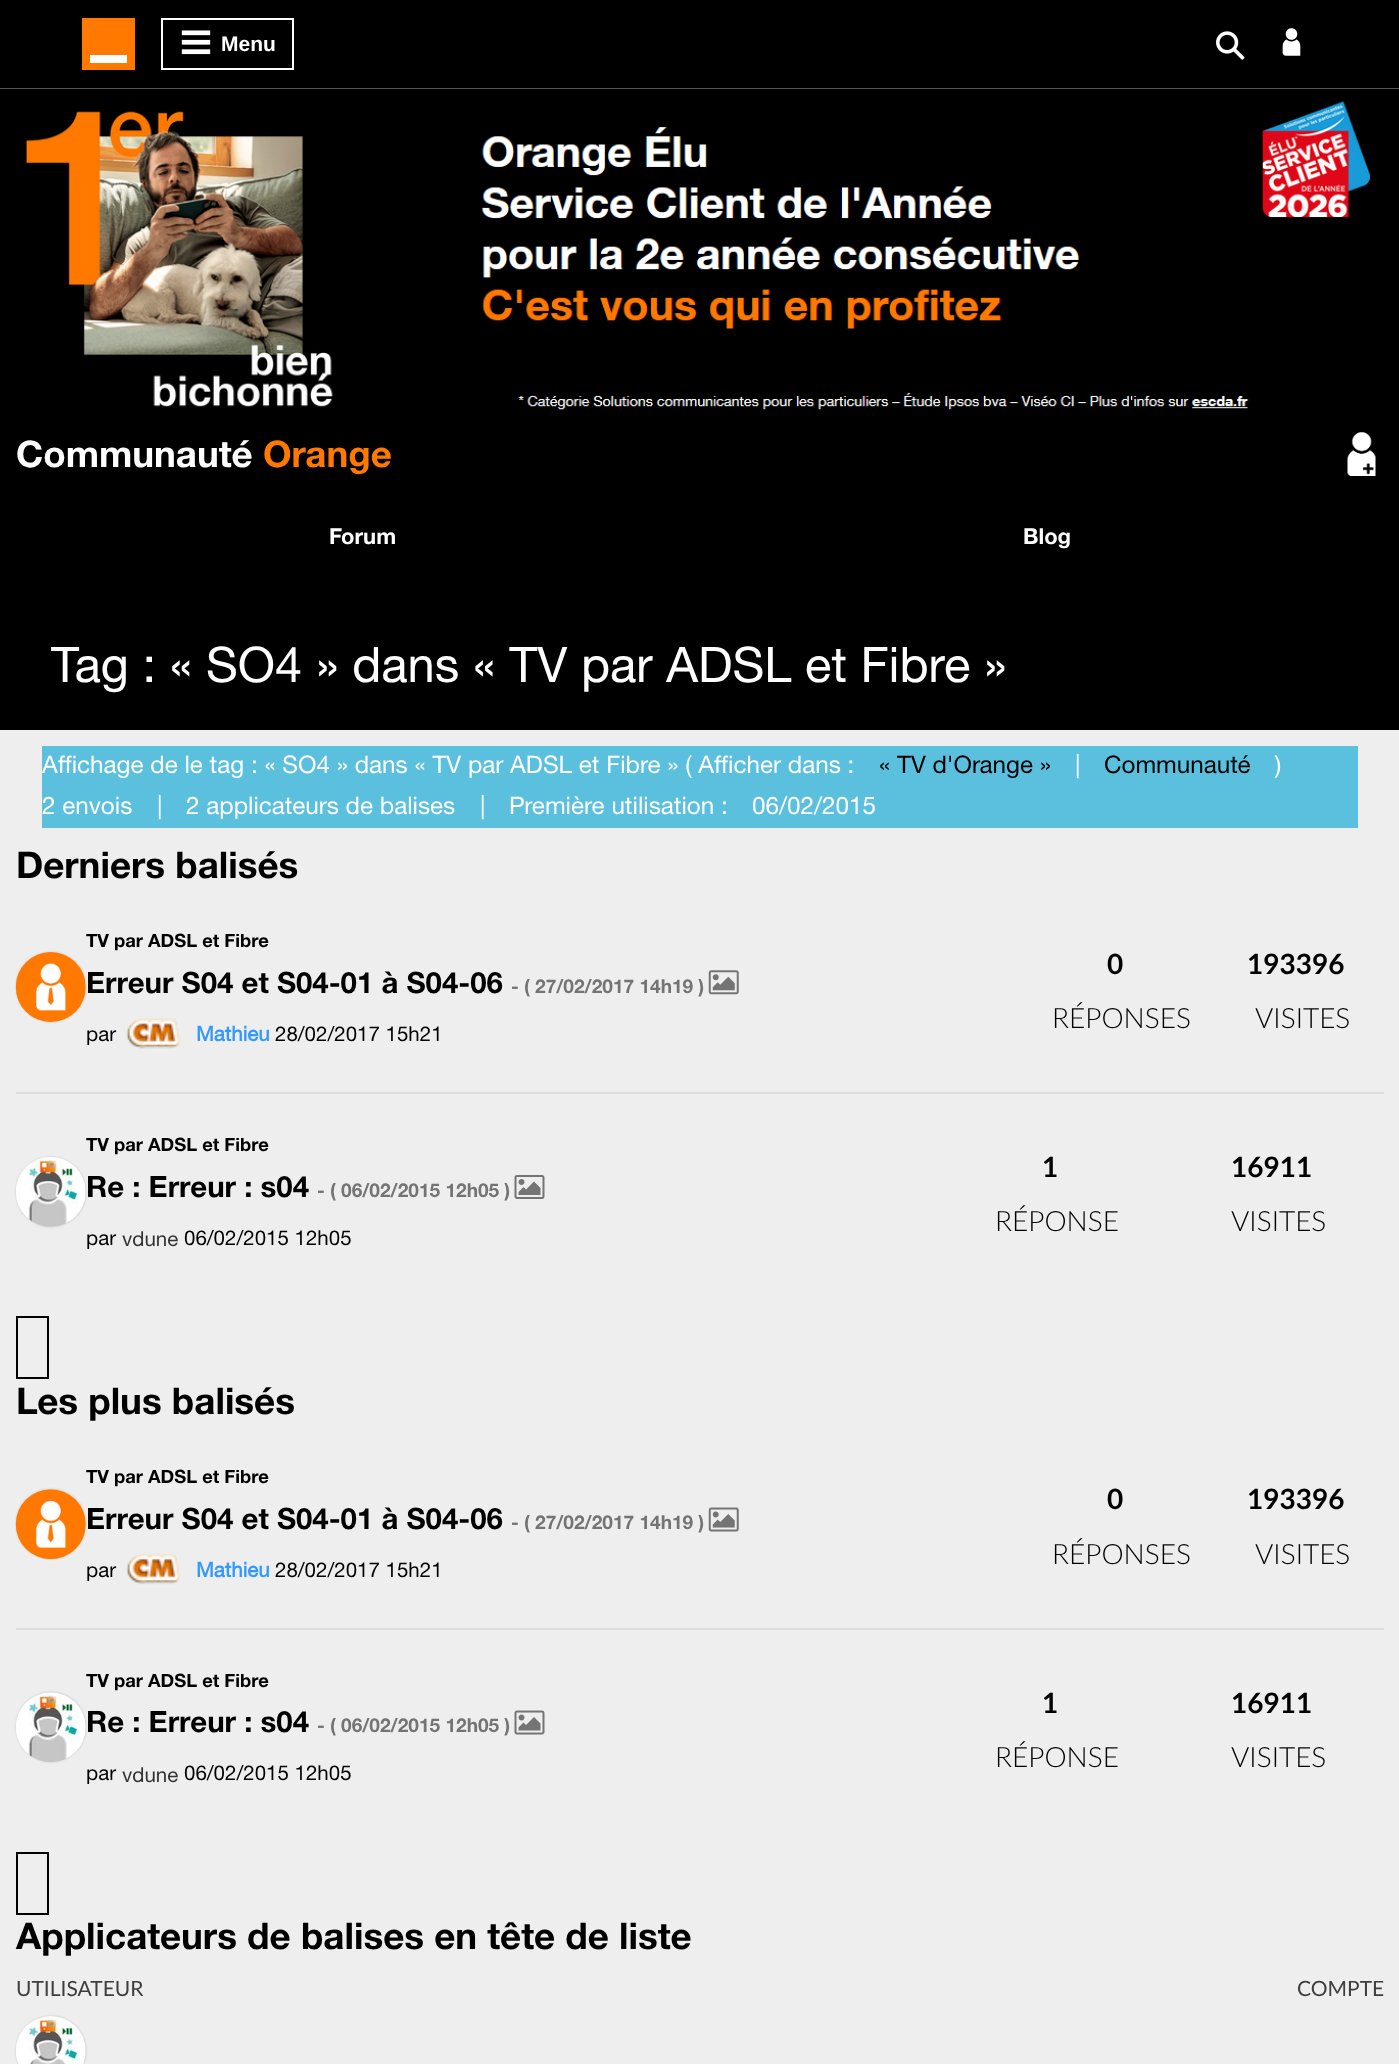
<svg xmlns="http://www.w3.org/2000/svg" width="1399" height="2064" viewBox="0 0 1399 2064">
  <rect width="100%" height="100%" fill="#eee"/>
  <path d="M0 0h1399v88H0z" fill="#000"/>
  <path d="M82 18h53v52H82z" fill="#ff7900"/>
  <path d="M90 55h37v8H90z" fill="#fff"/>
  <path d="M162 19h131v50H162z" fill="none" stroke="#fff" stroke-width="2"/>
  <image x="181" y="30" width="30" height="25" href="img/1.png"/>
  <image x="1216" y="31" width="29" height="29" href="img/2.png"/>
  <image x="1282" y="28" width="19" height="28" href="img/3.png"/>
  <path d="M0 88h1399v1H0z" fill="#555"/>
  <path d="M0 89h1399v641H0z" fill="#000"/>
  <image x="26" y="101" width="1344" height="309" href="img/4.png"/>
  <image x="1347" y="432" width="29" height="44" href="img/5.png"/>
  <path d="M42 746h1316v82H42z" fill="#5bc0de"/>
  <path d="M16 1092h1368v2H16z" fill="#ddd"/>
  <rect x="16" y="952" width="70" height="70" rx="35" fill="#c4c4c4" filter="blur(1px)"/>
  <image x="15" y="952" width="71" height="70" href="img/6.png"/>
  <image x="708" y="970" width="31" height="25" href="img/7.png"/>
  <image x="126" y="1018" width="55" height="31" href="img/8.png"/>
  <rect x="16" y="1157" width="70" height="70" rx="35" fill="#c4c4c4" filter="blur(1px)"/>
  <image x="16" y="1157" width="70" height="70" href="img/9.png"/>
  <image x="514" y="1175" width="31" height="24" href="img/10.png"/>
  <path d="M17 1317h31v61H17z" fill="none" stroke="#000" stroke-width="2"/>
  <path d="M16 1628h1368v2H16z" fill="#ddd"/>
  <rect x="16" y="1489" width="70" height="70" rx="35" fill="#c4c4c4" filter="blur(1px)"/>
  <image x="15" y="1489" width="71" height="71" href="img/11.png"/>
  <image x="708" y="1507" width="31" height="25" href="img/12.png"/>
  <image x="126" y="1553" width="55" height="32" href="img/13.png"/>
  <rect x="16" y="1692" width="70" height="70" rx="35" fill="#c4c4c4" filter="blur(1px)"/>
  <image x="16" y="1692" width="70" height="70" href="img/14.png"/>
  <image x="514" y="1710" width="31" height="25" href="img/15.png"/>
  <path d="M17 1853h31v61H17z" fill="none" stroke="#000" stroke-width="2"/>
  <rect x="16" y="2016" width="70" height="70" rx="35" fill="#c4c4c4" filter="blur(1px)"/>
  <image x="16" y="2016" width="70" height="48" href="img/16.png"/>
  <text x="221" y="51" font-family="Liberation Sans" font-size="21" font-weight="bold" fill="#fff">Menu</text>
  <text x="16" y="467" font-family="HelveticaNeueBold" font-size="36.75" font-weight="bold" fill="#fff">Communauté</text>
  <text x="263" y="467" font-family="HelveticaNeueBold" font-size="36.75" font-weight="bold" fill="#ff7900">Orange</text>
  <g font-family="HelveticaNeueBold" font-size="22" font-weight="bold" fill="#fff">
    <text x="329" y="544">Forum</text>
    <text x="1023" y="544">Blog</text>
  </g>
  <text x="51" y="682" font-family="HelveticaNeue" font-size="49" fill="#fff">Tag : « SO4 » dans « TV par ADSL et Fibre »</text>
  <text x="42" y="773" font-family="HelveticaNeue" font-size="24.25" fill="#fff">Affichage de le tag : « SO4 » dans « TV par ADSL et Fibre » ( Afficher dans :</text>
  <text x="879" y="773" font-family="HelveticaNeue" font-size="24.25" fill="#000">« TV d'Orange »</text>
  <text x="1075" y="773" font-family="HelveticaNeue" font-size="24.25" fill="#fff">|</text>
  <text x="1104" y="773" font-family="HelveticaNeue" font-size="24.25" fill="#000">Communauté</text>
  <g font-family="HelveticaNeue" font-size="24.25" fill="#fff">
    <text x="1275" y="773">)</text>
    <text x="42" y="814">2 envois</text>
    <text x="157" y="814">|</text>
    <text x="186" y="814">2 applicateurs de balises</text>
    <text x="480" y="814">|</text>
    <text x="509" y="814">Première utilisation :</text>
    <text x="752" y="814">06/02/2015</text>
  </g>
  <text x="16" y="878" font-family="HelveticaNeueBold" font-size="36.75" font-weight="bold" fill="#000">Derniers balisés</text>
  <text x="86" y="947" font-family="HelveticaNeueBold" font-size="18.4" font-weight="bold" fill="#000">TV par ADSL et Fibre</text>
  <text x="86" y="993" font-family="HelveticaNeueBold" font-size="29.4" font-weight="bold" fill="#000">Erreur S04 et S04-01 à S04-06</text>
  <text x="511" y="993" font-family="HelveticaNeueBold" font-size="19.1" font-weight="bold" fill="#747474">- ( 27/02/2017 14h19 )</text>
  <text x="86" y="1041" font-family="HelveticaNeue" font-size="20.5" fill="#000">par</text>
  <text x="196" y="1041" font-family="HelveticaNeue" font-size="20.5" font-weight="bold" fill="#39f">Mathieu</text>
  <text x="275" y="1041" font-family="HelveticaNeue" font-size="20.5" fill="#000">28/02/2017 15h21</text>
  <text x="1107" y="974" font-family="Lato" font-size="28" font-weight="bold" fill="#000">0</text>
  <text x="1052" y="1028" font-family="Lato" font-size="28" font-weight="300" fill="#000">RÉPONSES</text>
  <text x="1247" y="974" font-family="Lato" font-size="28" font-weight="bold" fill="#000">193396</text>
  <text x="1255" y="1028" font-family="Lato" font-size="28" font-weight="300" fill="#000">VISITES</text>
  <text x="86" y="1151" font-family="HelveticaNeueBold" font-size="18.4" font-weight="bold" fill="#000">TV par ADSL et Fibre</text>
  <text x="86" y="1197" font-family="HelveticaNeueBold" font-size="29.4" font-weight="bold" fill="#000">Re : Erreur : s04</text>
  <text x="317" y="1197" font-family="HelveticaNeueBold" font-size="19.1" font-weight="bold" fill="#747474">- ( 06/02/2015 12h05 )</text>
  <text x="86" y="1245" font-family="HelveticaNeue" font-size="20.5" fill="#000">par</text>
  <text x="122" y="1246" font-family="HelveticaNeue" font-size="20.5" fill="#333">vdune</text>
  <text x="184" y="1245" font-family="HelveticaNeue" font-size="20.5" fill="#000">06/02/2015 12h05</text>
  <text x="1042" y="1177" font-family="Lato" font-size="28" font-weight="bold" fill="#000">1</text>
  <text x="995" y="1231" font-family="Lato" font-size="28" font-weight="300" fill="#000">RÉPONSE</text>
  <text x="1231" y="1177" font-family="Lato" font-size="28" font-weight="bold" fill="#000">16911</text>
  <text x="1231" y="1231" font-family="Lato" font-size="28" font-weight="300" fill="#000">VISITES</text>
  <text x="16" y="1414" font-family="HelveticaNeueBold" font-size="36.75" font-weight="bold" fill="#000">Les plus balisés</text>
  <text x="86" y="1483" font-family="HelveticaNeueBold" font-size="18.4" font-weight="bold" fill="#000">TV par ADSL et Fibre</text>
  <text x="86" y="1529" font-family="HelveticaNeueBold" font-size="29.4" font-weight="bold" fill="#000">Erreur S04 et S04-01 à S04-06</text>
  <text x="511" y="1529" font-family="HelveticaNeueBold" font-size="19.1" font-weight="bold" fill="#747474">- ( 27/02/2017 14h19 )</text>
  <text x="86" y="1577" font-family="HelveticaNeue" font-size="20.5" fill="#000">par</text>
  <text x="196" y="1577" font-family="HelveticaNeue" font-size="20.5" font-weight="bold" fill="#39f">Mathieu</text>
  <text x="275" y="1577" font-family="HelveticaNeue" font-size="20.5" fill="#000">28/02/2017 15h21</text>
  <text x="1107" y="1509" font-family="Lato" font-size="28" font-weight="bold" fill="#000">0</text>
  <text x="1052" y="1564" font-family="Lato" font-size="28" font-weight="300" fill="#000">RÉPONSES</text>
  <text x="1247" y="1509" font-family="Lato" font-size="28" font-weight="bold" fill="#000">193396</text>
  <text x="1255" y="1564" font-family="Lato" font-size="28" font-weight="300" fill="#000">VISITES</text>
  <text x="86" y="1687" font-family="HelveticaNeueBold" font-size="18.4" font-weight="bold" fill="#000">TV par ADSL et Fibre</text>
  <text x="86" y="1732" font-family="HelveticaNeueBold" font-size="29.4" font-weight="bold" fill="#000">Re : Erreur : s04</text>
  <text x="317" y="1732" font-family="HelveticaNeueBold" font-size="19.1" font-weight="bold" fill="#747474">- ( 06/02/2015 12h05 )</text>
  <text x="86" y="1780" font-family="HelveticaNeue" font-size="20.5" fill="#000">par</text>
  <text x="122" y="1782" font-family="HelveticaNeue" font-size="20.5" fill="#333">vdune</text>
  <text x="184" y="1780" font-family="HelveticaNeue" font-size="20.5" fill="#000">06/02/2015 12h05</text>
  <text x="1042" y="1713" font-family="Lato" font-size="28" font-weight="bold" fill="#000">1</text>
  <text x="995" y="1767" font-family="Lato" font-size="28" font-weight="300" fill="#000">RÉPONSE</text>
  <text x="1231" y="1713" font-family="Lato" font-size="28" font-weight="bold" fill="#000">16911</text>
  <text x="1231" y="1767" font-family="Lato" font-size="28" font-weight="300" fill="#000">VISITES</text>
  <text x="16" y="1949" font-family="HelveticaNeueBold" font-size="36.75" font-weight="bold" fill="#000">Applicateurs de balises en tête de liste</text>
  <g font-family="Lato" font-size="21" fill="#3e3e3e">
    <text x="16" y="1996">UTILISATEUR</text>
    <text x="1297" y="1996">COMPTE</text>
  </g>
</svg>
